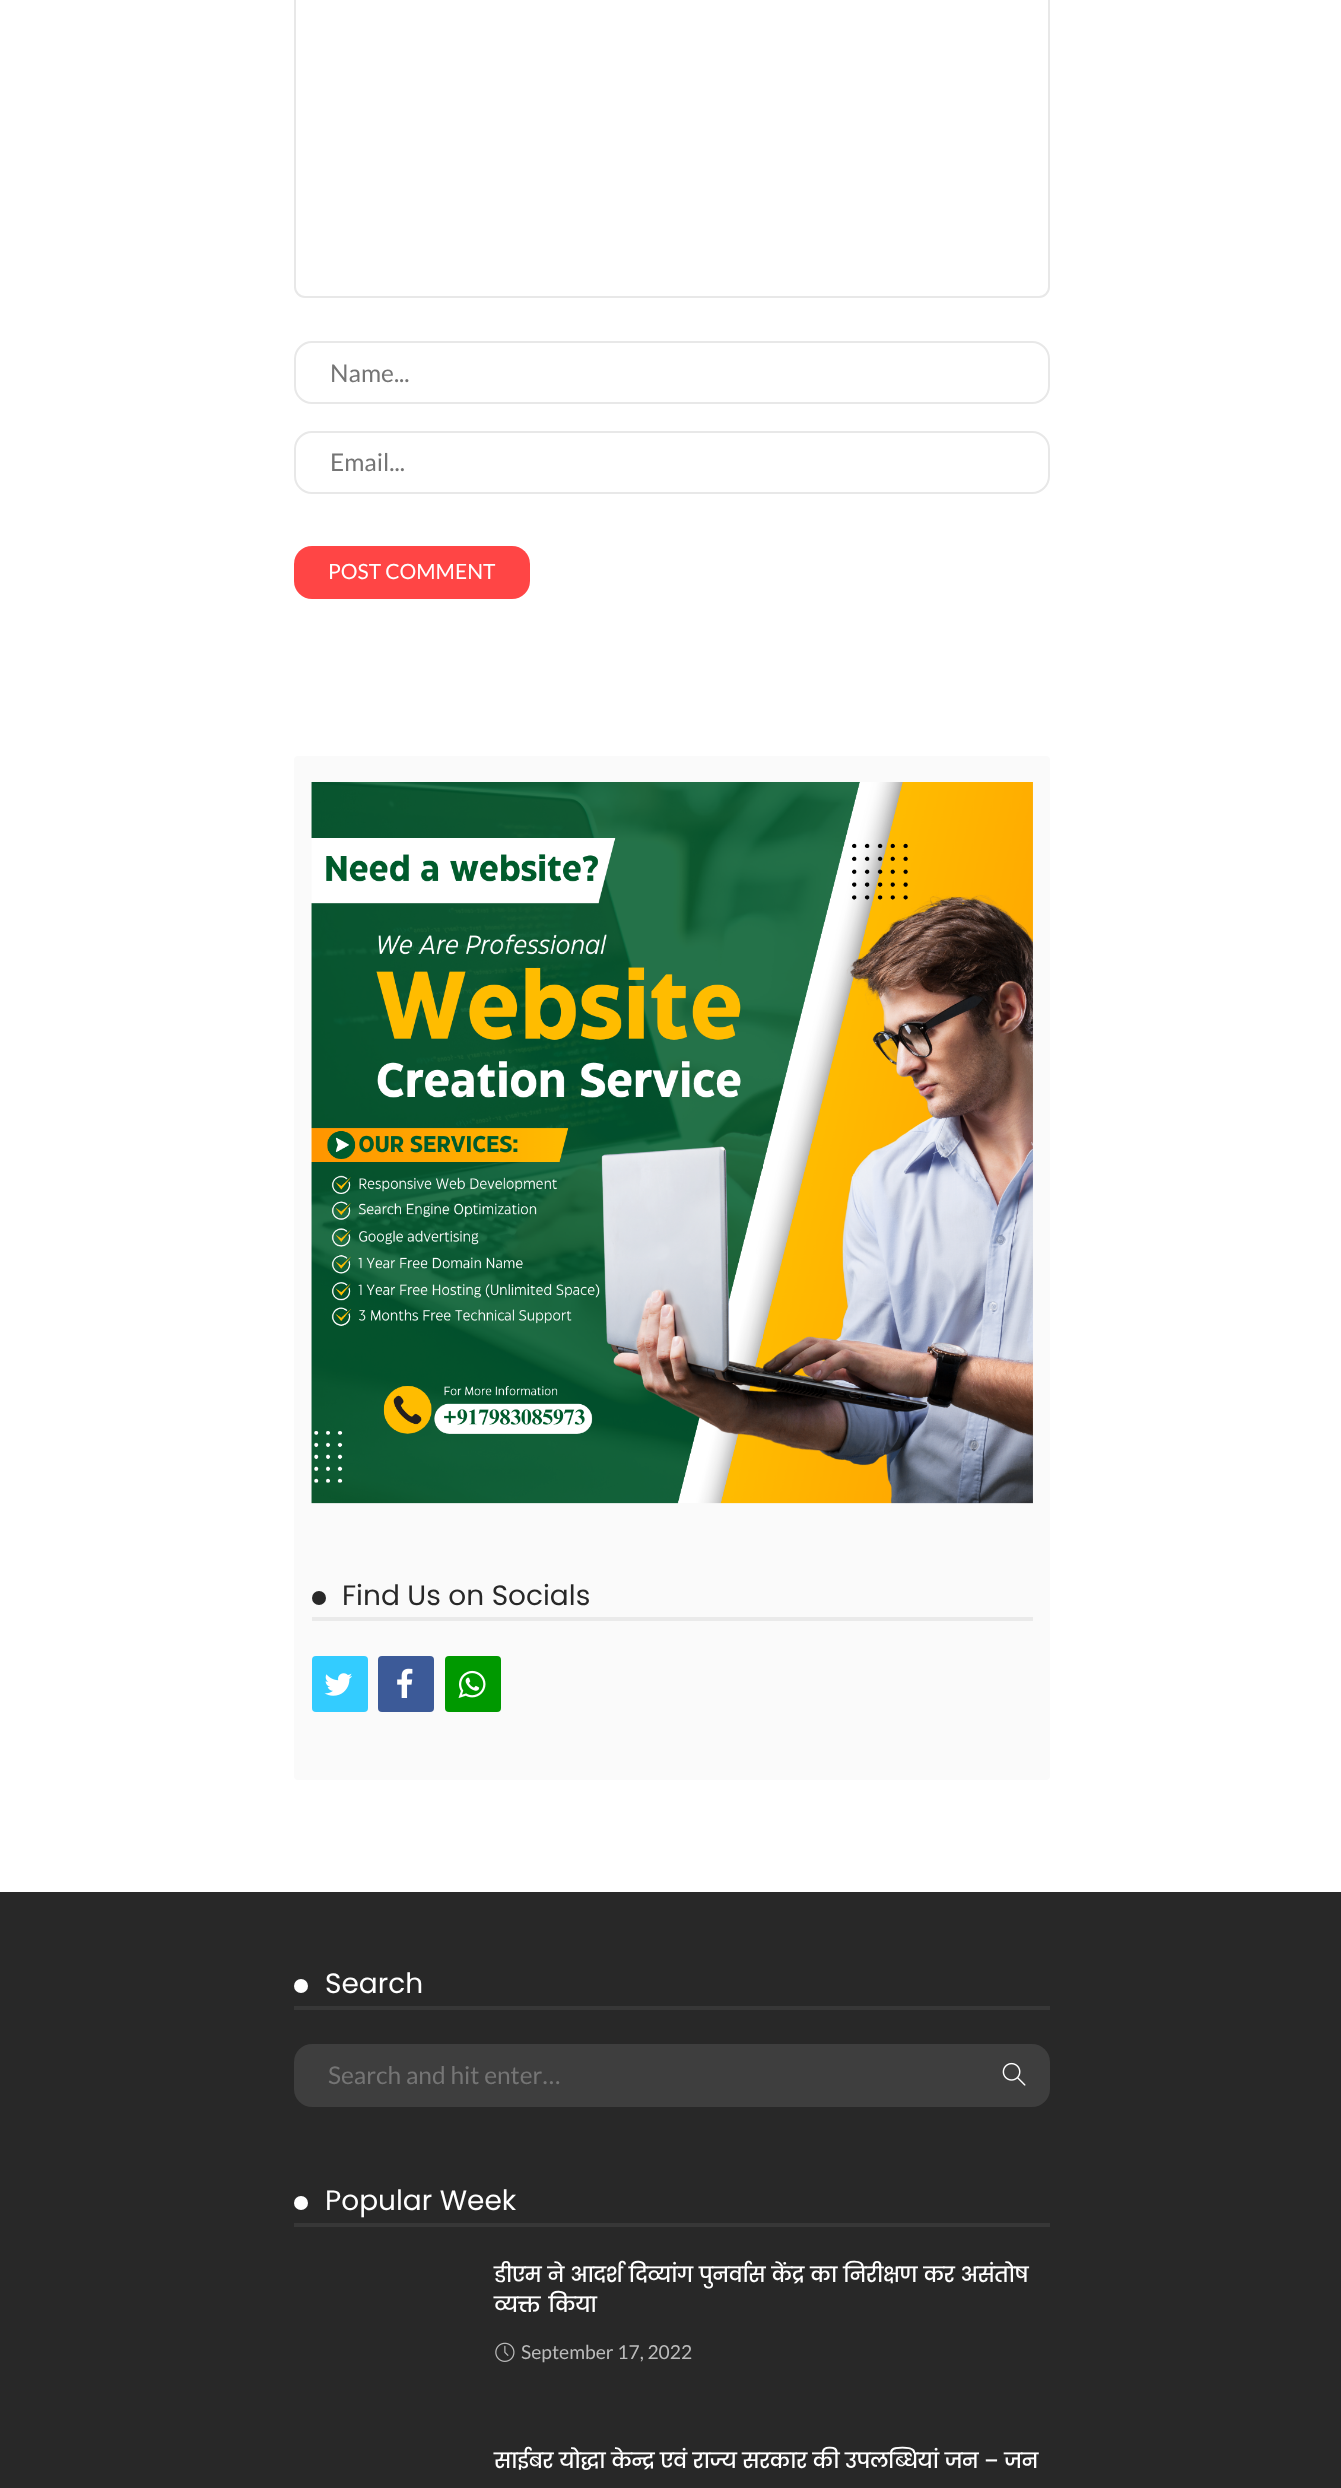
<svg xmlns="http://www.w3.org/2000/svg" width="1341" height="2488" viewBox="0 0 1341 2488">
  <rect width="100%" height="100%" fill="#fff"/>
  <rect x="295" y="-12" width="754" height="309" rx="10" fill="none" stroke="#e8e8e8" stroke-width="2"/>
  <rect x="295" y="342" width="754" height="61" rx="17" fill="none" stroke="#e8e8e8" stroke-width="2"/>
  <rect x="295" y="432" width="754" height="61" rx="17" fill="none" stroke="#e8e8e8" stroke-width="2"/>
  <rect x="294" y="546" width="236" height="53" rx="18" fill="#ff4545"/>
  <rect x="294" y="756" width="756" height="1024" rx="4" fill="#fafafa"/>
  <image x="311" y="782" width="722" height="722" href="img/1.png"/>
  <path d="M312 1617h721v4H312z" fill="#eaeaea"/>
  <circle cx="319" cy="1598" r="7" fill="#282828"/>
  <rect x="312" y="1656" width="56" height="56" rx="4" fill="#3cf"/>
  <image x="324" y="1673" width="28" height="23" href="img/2.png"/>
  <rect x="378" y="1656" width="56" height="56" rx="4" fill="#3c5a98"/>
  <image x="397" y="1668" width="16" height="30" href="img/3.png"/>
  <rect x="445" y="1656" width="56" height="56" rx="4" fill="#090"/>
  <image x="458" y="1670" width="28" height="28" href="img/4.png"/>
  <path d="M0 1892h1341v596H0z" fill="#282828"/>
  <path d="M294 2006h756v4H294z" fill="#373737"/>
  <circle cx="301" cy="1986" r="7" fill="#fff"/>
  <rect x="294" y="2044" width="756" height="63" rx="18" fill="#3e3e3e"/>
  <image x="1002" y="2062" width="24" height="24" href="img/5.png"/>
  <path d="M294 2223h756v4H294z" fill="#373737"/>
  <circle cx="301" cy="2203" r="7" fill="#fff"/>
  <image x="495" y="2342" width="20" height="20" href="img/6.png"/>
  <g font-family="Lato" font-size="24.5" fill="#757575">
    <text x="330" y="382">Name...</text>
    <text x="330" y="471">Email...</text>
  </g>
  <text x="328" y="579" font-family="Lato" font-size="21" fill="#fff">POST COMMENT</text>
  <text x="342" y="1605" font-family="Poppins" font-size="28" fill="#282828">Find Us on Socials</text>
  <text x="325" y="1993" font-family="Poppins" font-size="28" fill="#fff">Search</text>
  <text x="328" y="2084" font-family="Lato" font-size="24.5" fill="#757575">Search and hit enter…</text>
  <text x="325" y="2210" font-family="Poppins" font-size="28" fill="#fff">Popular Week</text>
  <g font-family="Poppins" font-size="21" font-weight="500" letter-spacing="-0.63" fill="#fff">
    <text x="494" y="2282" word-spacing="1.75">डीएम ने आदर्श दिव्यांग पुनर्वास केंद्र का निरीक्षण कर असंतोष</text>
    <text x="494" y="2312" word-spacing="4">व्यक्त किया</text>
  </g>
  <text x="521" y="2359" font-family="Lato" font-size="19.25" fill="#bbb">September 17, 2022</text>
  <text x="494" y="2468" word-spacing="1.25" font-family="Poppins" font-size="21" font-weight="500" letter-spacing="-0.63" fill="#fff">साईबर योद्धा केन्द्र एवं राज्य सरकार की उपलब्धियां जन – जन</text>
</svg>
